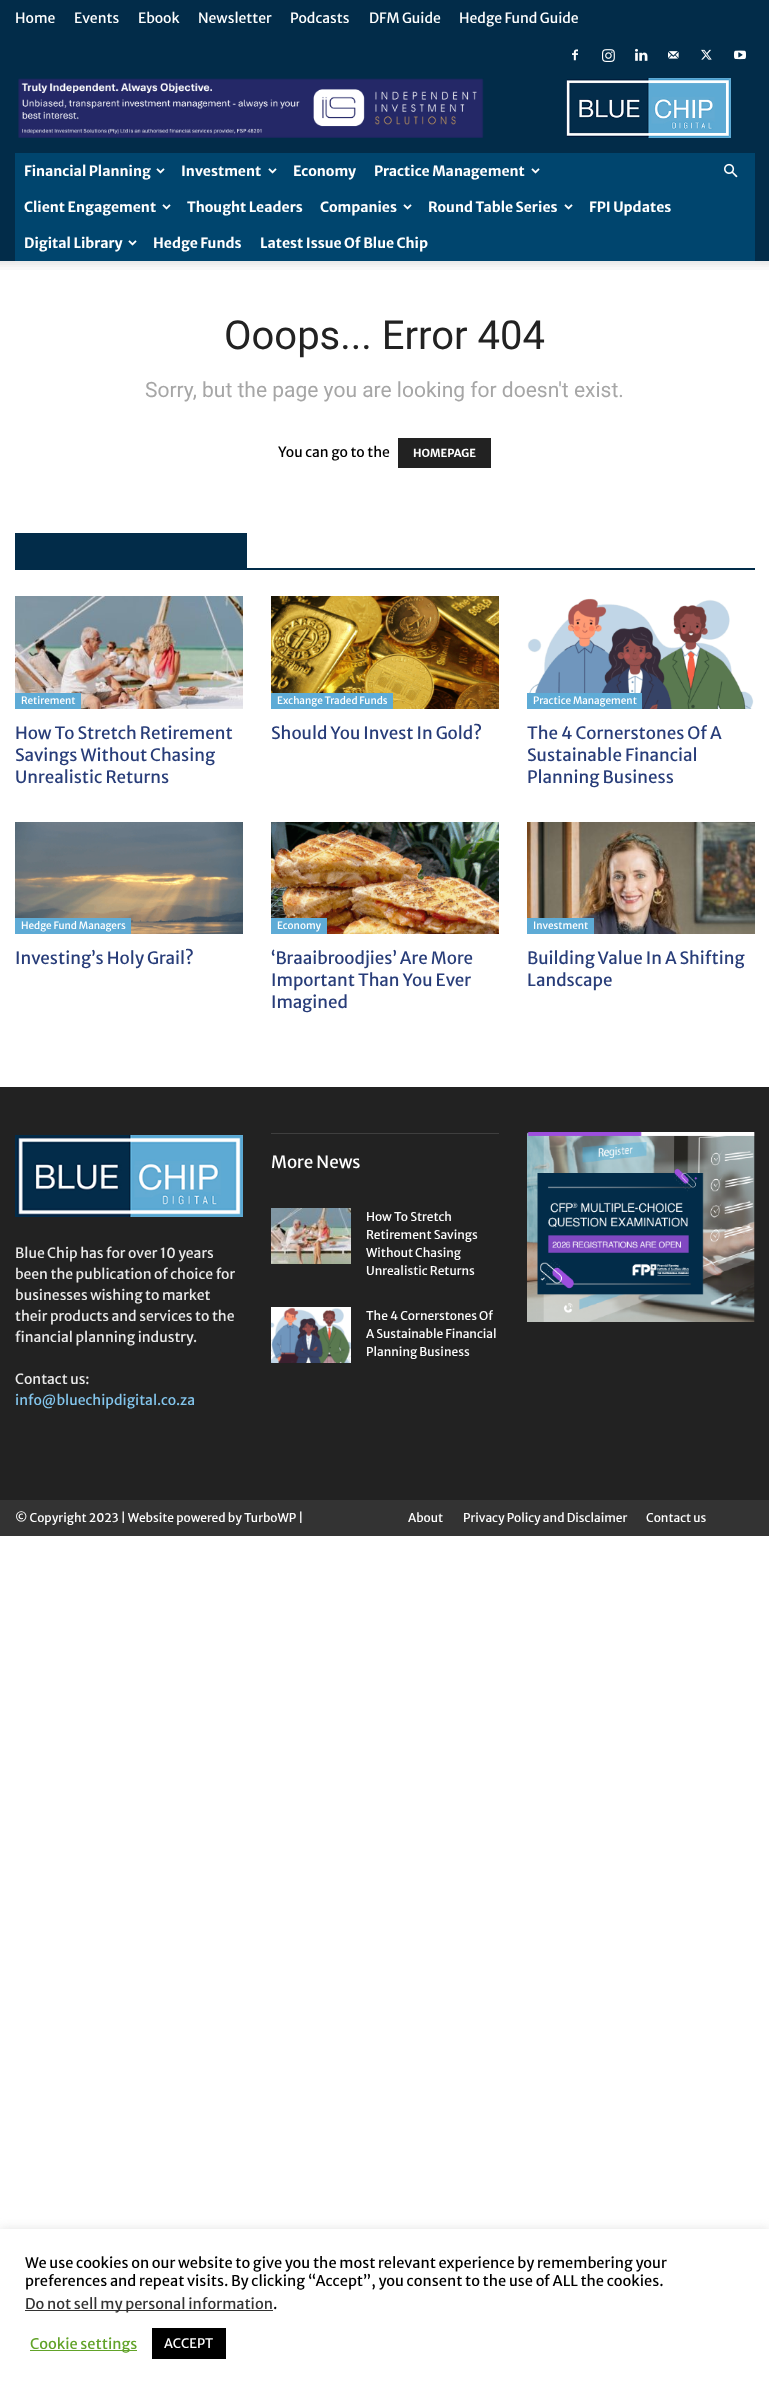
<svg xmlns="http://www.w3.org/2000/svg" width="769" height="2389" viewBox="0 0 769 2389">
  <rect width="100%" height="100%" fill="#fff"/>
  <path d="M0 0h769v261H0z" fill="#022c49"/>
  <image x="18" y="78" width="466" height="60" href="img/1.png"/>
  <image x="566" y="78" width="165" height="60" href="img/2.png"/>
  <image x="572" y="49" width="6" height="12" href="img/3.png"/>
  <image x="602" y="49" width="13" height="13" href="img/4.png"/>
  <image x="635" y="48" width="13" height="13" href="img/5.png"/>
  <image x="668" y="51" width="11" height="8" href="img/6.png"/>
  <image x="701" y="49" width="11" height="11" href="img/7.png"/>
  <image x="734" y="50" width="12" height="10" href="img/8.png"/>
  <path d="M15 153h740v108H15z" fill="#00456e"/>
  <image x="156" y="168" width="9" height="6" href="img/9.png"/>
  <image x="268" y="168" width="9" height="6" href="img/9.png"/>
  <image x="531" y="168" width="9" height="6" href="img/9.png"/>
  <image x="162" y="204" width="9" height="6" href="img/9.png"/>
  <image x="403" y="204" width="9" height="6" href="img/9.png"/>
  <image x="564" y="204" width="9" height="6" href="img/9.png"/>
  <image x="128" y="240" width="9" height="6" href="img/9.png"/>
  <image x="724" y="163" width="14" height="15" href="img/10.png"/>
  <image x="0" y="261" width="769" height="9" href="img/11.png"/>
  <path d="M398 438h93v30H398z" fill="#222"/>
  <path d="M15 568h740v2H15z" fill="#022c49"/>
  <path d="M15 533h232v35H15z" fill="#022c49"/>
  <image x="15" y="596" width="228" height="113" href="img/12.png"/>
  <path d="M15 693h66v16H15z" fill="#5eabd6"/>
  <image x="271" y="596" width="228" height="113" href="img/13.png"/>
  <path d="M271 693h122v16H271z" fill="#5eabd6"/>
  <image x="527" y="598" width="227" height="111" href="img/14.png"/>
  <path d="M527 693h115v16H527z" fill="#5eabd6"/>
  <image x="15" y="822" width="228" height="112" href="img/15.png"/>
  <path d="M15 918h116v16H15z" fill="#5eabd6"/>
  <image x="271" y="822" width="228" height="112" href="img/16.png"/>
  <path d="M271 918h56v16H271z" fill="#5eabd6"/>
  <image x="527" y="822" width="228" height="112" href="img/17.png"/>
  <path d="M527 918h67v16H527z" fill="#5eabd6"/>
  <path d="M0 1087h769v413H0z" fill="#222"/>
  <image x="15" y="1135" width="228" height="82" href="img/18.png"/>
  <path d="M271 1133h228v1H271z" fill="#3f3f3f"/>
  <image x="271" y="1208" width="80" height="56" href="img/19.png"/>
  <image x="271" y="1307" width="80" height="56" href="img/20.png"/>
  <image x="527" y="1132" width="228" height="190" href="img/21.png"/>
  <path d="M0 1500h769v36H0z" fill="#333"/>
  <path d="M0 2228h769v160H0z" fill="#acabab4d" filter="blur(5px)"/>
  <path d="M0 2229h769v160H0z" fill="#fff"/>
  <path d="M25 2310h248v1H25z" fill="#333"/>
  <path d="M30 2350h107v1H30z" fill="#62a329"/>
  <path d="M152 2328h74v31H152z" fill="#000"/>
  <g font-family="Merriweather Sans" font-size="14" fill="#fff">
    <text x="15" y="23">Home</text>
    <text x="74" y="23">Events</text>
    <text x="138" y="23">Ebook</text>
    <text x="198" y="23">Newsletter</text>
    <text x="290" y="23">Podcasts</text>
    <text x="369" y="23">DFM Guide</text>
    <text x="459" y="23">Hedge Fund Guide</text>
  </g>
  <g font-family="Merriweather Sans" font-size="14" font-weight="bold" fill="#fff">
    <text x="24" y="176">Financial Planning</text>
    <text x="181" y="176">Investment</text>
    <text x="293" y="176">Economy</text>
    <text x="374" y="176">Practice Management</text>
    <text x="24" y="212">Client Engagement</text>
    <text x="187" y="212">Thought Leaders</text>
    <text x="320" y="212">Companies</text>
    <text x="428" y="212">Round Table Series</text>
    <text x="589" y="212">FPI Updates</text>
    <text x="24" y="248">Digital Library</text>
    <text x="153" y="248">Hedge Funds</text>
    <text x="260" y="248">Latest Issue Of Blue Chip</text>
  </g>
  <text x="224" y="349" font-family="Roboto" font-size="40" fill="#222">Ooops... Error 404</text>
  <text x="145" y="397" font-family="Roboto" font-size="21" fill="#a6a6a6">Sorry, but the page you are looking for doesn't exist.</text>
  <text x="278" y="457" font-family="Merriweather Sans" font-size="14" fill="#000">You can go to the</text>
  <text x="413" y="457" font-family="Merriweather Sans" font-size="11" font-weight="bold" fill="#fff">HOMEPAGE</text>
  <text x="21" y="704" font-family="Merriweather Sans" font-size="10" fill="#fff">Retirement</text>
  <g font-family="Merriweather Sans" font-size="17" fill="#283d79">
    <text x="15" y="739">How To Stretch Retirement</text>
    <text x="15" y="761">Savings Without Chasing</text>
    <text x="15" y="783">Unrealistic Returns</text>
  </g>
  <text x="277" y="704" font-family="Merriweather Sans" font-size="10" fill="#fff">Exchange Traded Funds</text>
  <text x="271" y="739" font-family="Merriweather Sans" font-size="17" fill="#283d79">Should You Invest In Gold?</text>
  <text x="533" y="704" font-family="Merriweather Sans" font-size="10" fill="#fff">Practice Management</text>
  <g font-family="Merriweather Sans" font-size="17" fill="#283d79">
    <text x="527" y="739">The 4 Cornerstones Of A</text>
    <text x="527" y="761">Sustainable Financial</text>
    <text x="527" y="783">Planning Business</text>
  </g>
  <text x="21" y="929" font-family="Merriweather Sans" font-size="10" fill="#fff">Hedge Fund Managers</text>
  <text x="15" y="964" font-family="Merriweather Sans" font-size="17" fill="#283d79">Investing’s Holy Grail?</text>
  <text x="277" y="929" font-family="Merriweather Sans" font-size="10" fill="#fff">Economy</text>
  <g font-family="Merriweather Sans" font-size="17" fill="#283d79">
    <text x="271" y="964">‘Braaibroodjies’ Are More</text>
    <text x="271" y="986">Important Than You Ever</text>
    <text x="271" y="1008">Imagined</text>
  </g>
  <text x="533" y="929" font-family="Merriweather Sans" font-size="10" fill="#fff">Investment</text>
  <g font-family="Merriweather Sans" font-size="17" fill="#283d79">
    <text x="527" y="964">Building Value In A Shifting</text>
    <text x="527" y="986">Landscape</text>
  </g>
  <g font-family="Merriweather Sans" font-size="14" fill="#eaeaea">
    <text x="15" y="1258">Blue Chip has for over 10 years</text>
    <text x="15" y="1279">been the publication of choice for</text>
    <text x="15" y="1300">businesses wishing to market</text>
    <text x="15" y="1321">their products and services to the</text>
    <text x="15" y="1342">financial planning industry.</text>
    <text x="15" y="1384">Contact us:</text>
  </g>
  <text x="15" y="1405" font-family="Merriweather Sans" font-size="14" fill="#83c5ec">info@bluechipdigital.co.za</text>
  <text x="271" y="1168" font-family="Merriweather Sans" font-size="17" fill="#fff">More News</text>
  <g font-family="Merriweather Sans" font-size="12" fill="#fff">
    <text x="366" y="1221">How To Stretch</text>
    <text x="366" y="1239">Retirement Savings</text>
    <text x="366" y="1257">Without Chasing</text>
    <text x="366" y="1275">Unrealistic Returns</text>
    <text x="366" y="1320">The 4 Cornerstones Of</text>
    <text x="366" y="1338">A Sustainable Financial</text>
    <text x="366" y="1356">Planning Business</text>
    <text x="15" y="1522">© Copyright 2023 | Website powered by TurboWP |</text>
    <text x="408" y="1522">About</text>
    <text x="463" y="1522">Privacy Policy and Disclaimer</text>
    <text x="646" y="1522">Contact us</text>
  </g>
  <g font-family="Merriweather Sans" font-size="14.65" fill="#000">
    <text x="25" y="2268">We use cookies on our website to give you the most relevant experience by remembering your</text>
    <text x="25" y="2286">preferences and repeat visits. By clicking “Accept”, you consent to the use of ALL the cookies.</text>
  </g>
  <text x="25" y="2309" font-family="Merriweather Sans" font-size="14.65" fill="#333">Do not sell my personal information</text>
  <text x="273" y="2309" font-family="Merriweather Sans" font-size="14.65" fill="#000">.</text>
  <text x="30" y="2349" font-family="Merriweather Sans" font-size="14.65" fill="#62a329">Cookie settings</text>
  <text x="164" y="2348" font-family="Merriweather Sans" font-size="13" fill="#fff">ACCEPT</text>
</svg>
